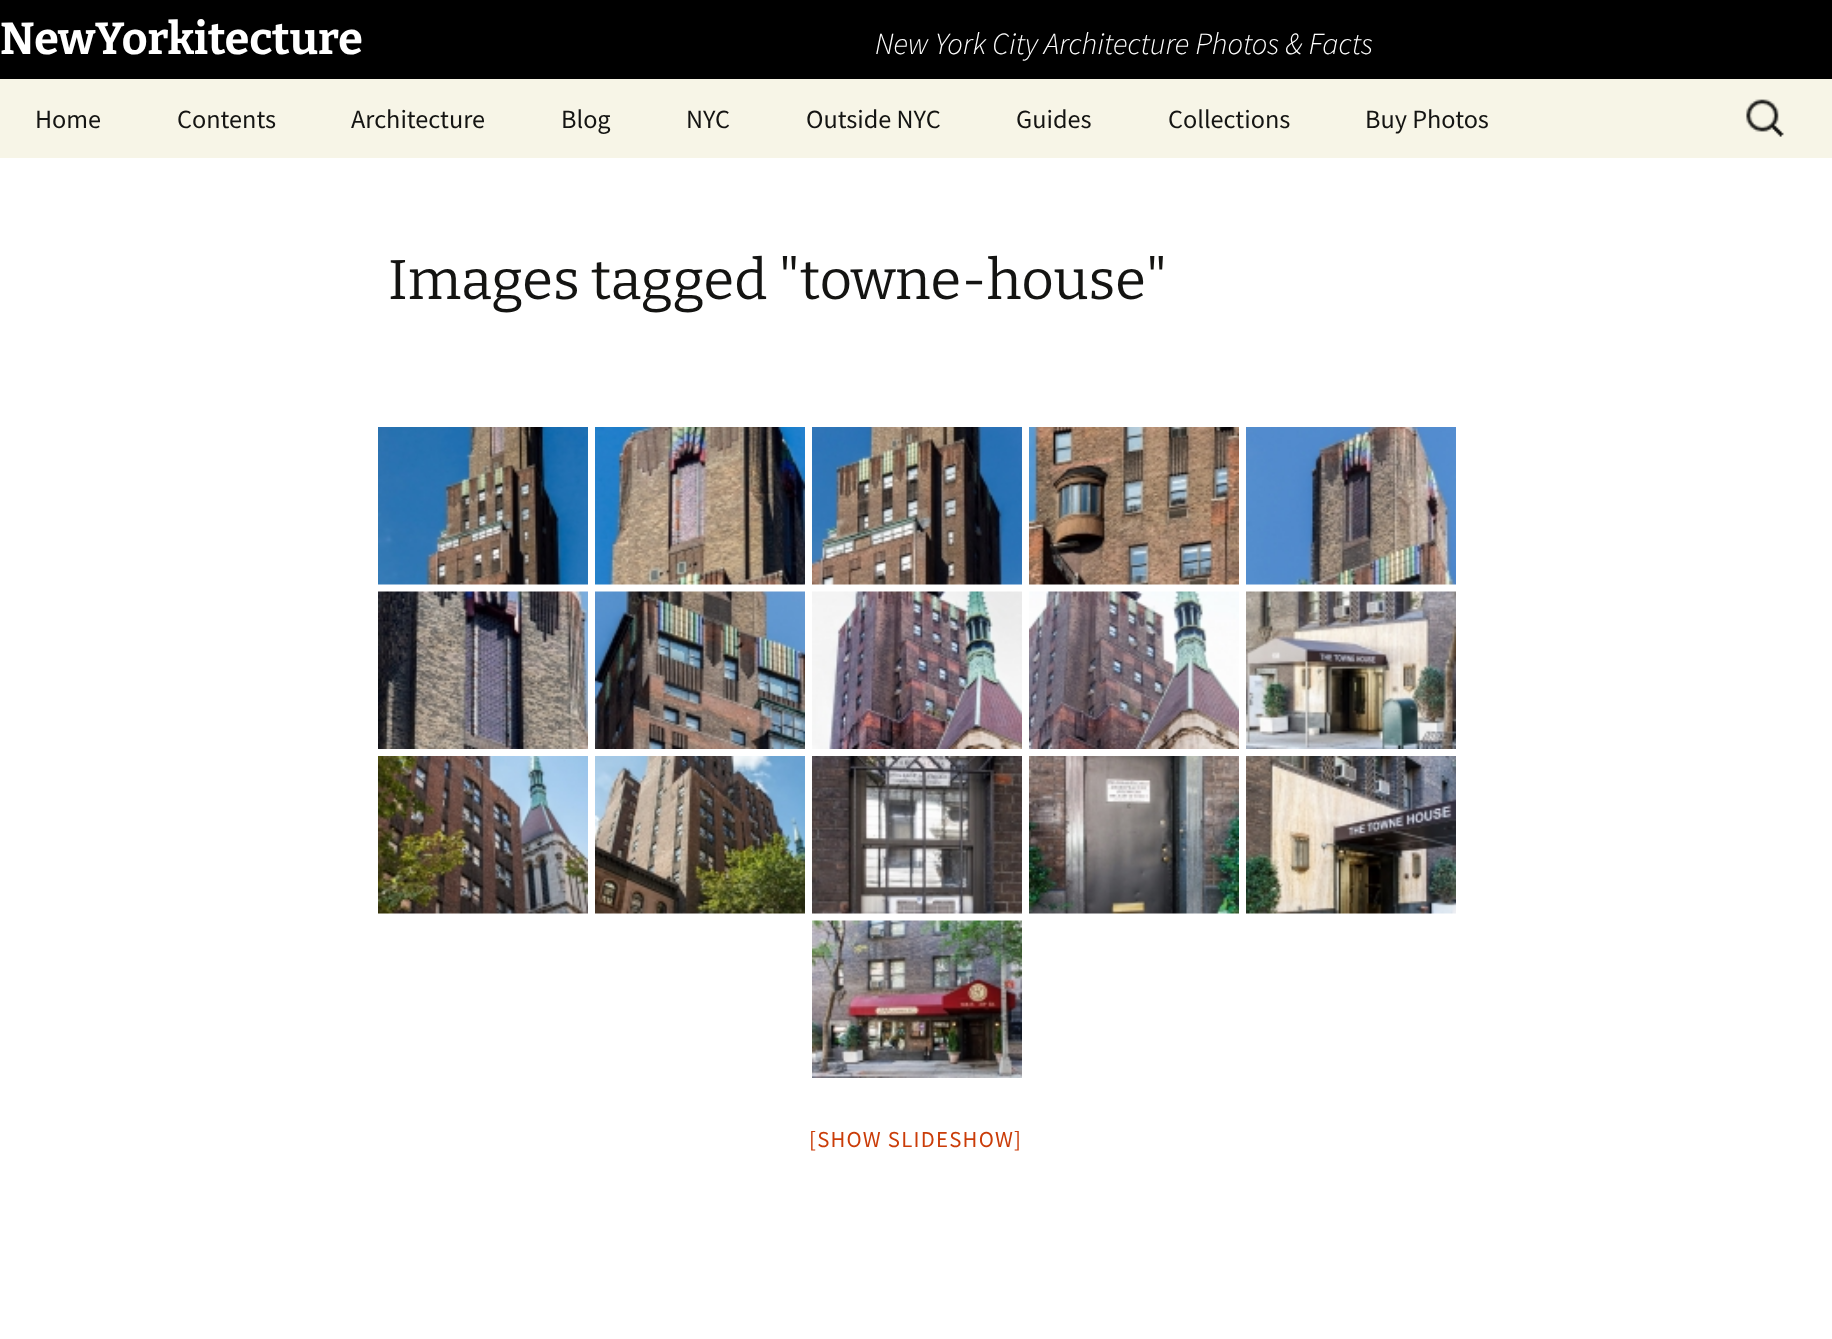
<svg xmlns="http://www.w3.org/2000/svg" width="1832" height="1339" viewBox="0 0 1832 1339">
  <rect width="100%" height="100%" fill="#fff"/>
  <path d="M0 0h1832v79H0z" fill="#000"/>
  <path d="M0 79h1832v79H0z" fill="#f7f5e7"/>
  <image x="1746" y="99" width="38" height="38" href="img/1.png"/>
  <image x="378" y="427" width="210" height="158" href="img/2.png"/>
  <image x="595" y="427" width="210" height="158" href="img/3.png"/>
  <image x="812" y="427" width="210" height="158" href="img/4.png"/>
  <image x="1029" y="427" width="210" height="158" href="img/5.png"/>
  <image x="1246" y="427" width="210" height="158" href="img/6.png"/>
  <image x="378" y="591" width="210" height="158" href="img/7.png"/>
  <image x="595" y="591" width="210" height="158" href="img/8.png"/>
  <image x="812" y="591" width="210" height="158" href="img/9.png"/>
  <image x="1029" y="591" width="210" height="158" href="img/10.png"/>
  <image x="1246" y="591" width="210" height="158" href="img/11.png"/>
  <image x="378" y="756" width="210" height="158" href="img/12.png"/>
  <image x="595" y="756" width="210" height="158" href="img/13.png"/>
  <image x="812" y="756" width="210" height="158" href="img/14.png"/>
  <image x="1029" y="756" width="210" height="158" href="img/15.png"/>
  <image x="1246" y="756" width="210" height="158" href="img/16.png"/>
  <image x="812" y="920" width="210" height="158" href="img/17.png"/>
  <text x="0" y="54" font-family="Bitter" font-size="44.75" font-weight="100" fill="#fff">NewYorkitecture</text>
  <text x="875" y="54" font-family="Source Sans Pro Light" font-size="30.75" font-weight="300" font-style="italic" fill="#fff">New York City Architecture Photos &amp; Facts</text>
  <g font-family="Source Sans Pro" font-size="26.25" fill="#141412">
    <text x="35" y="128">Home</text>
    <text x="177" y="128">Contents</text>
    <text x="351" y="128">Architecture</text>
    <text x="561" y="128">Blog</text>
    <text x="686" y="128">NYC</text>
    <text x="806" y="128">Outside NYC</text>
    <text x="1016" y="128">Guides</text>
    <text x="1168" y="128">Collections</text>
    <text x="1365" y="128">Buy Photos</text>
  </g>
  <text x="388" y="299" font-family="'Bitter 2'" font-size="56" font-weight="100" fill="#141412">Images tagged "towne-house"</text>
  <text x="809" y="1147" font-family="Source Sans Pro" font-size="22.75" letter-spacing="1.25" fill="#ca3c08">[SHOW SLIDESHOW]</text>
</svg>
